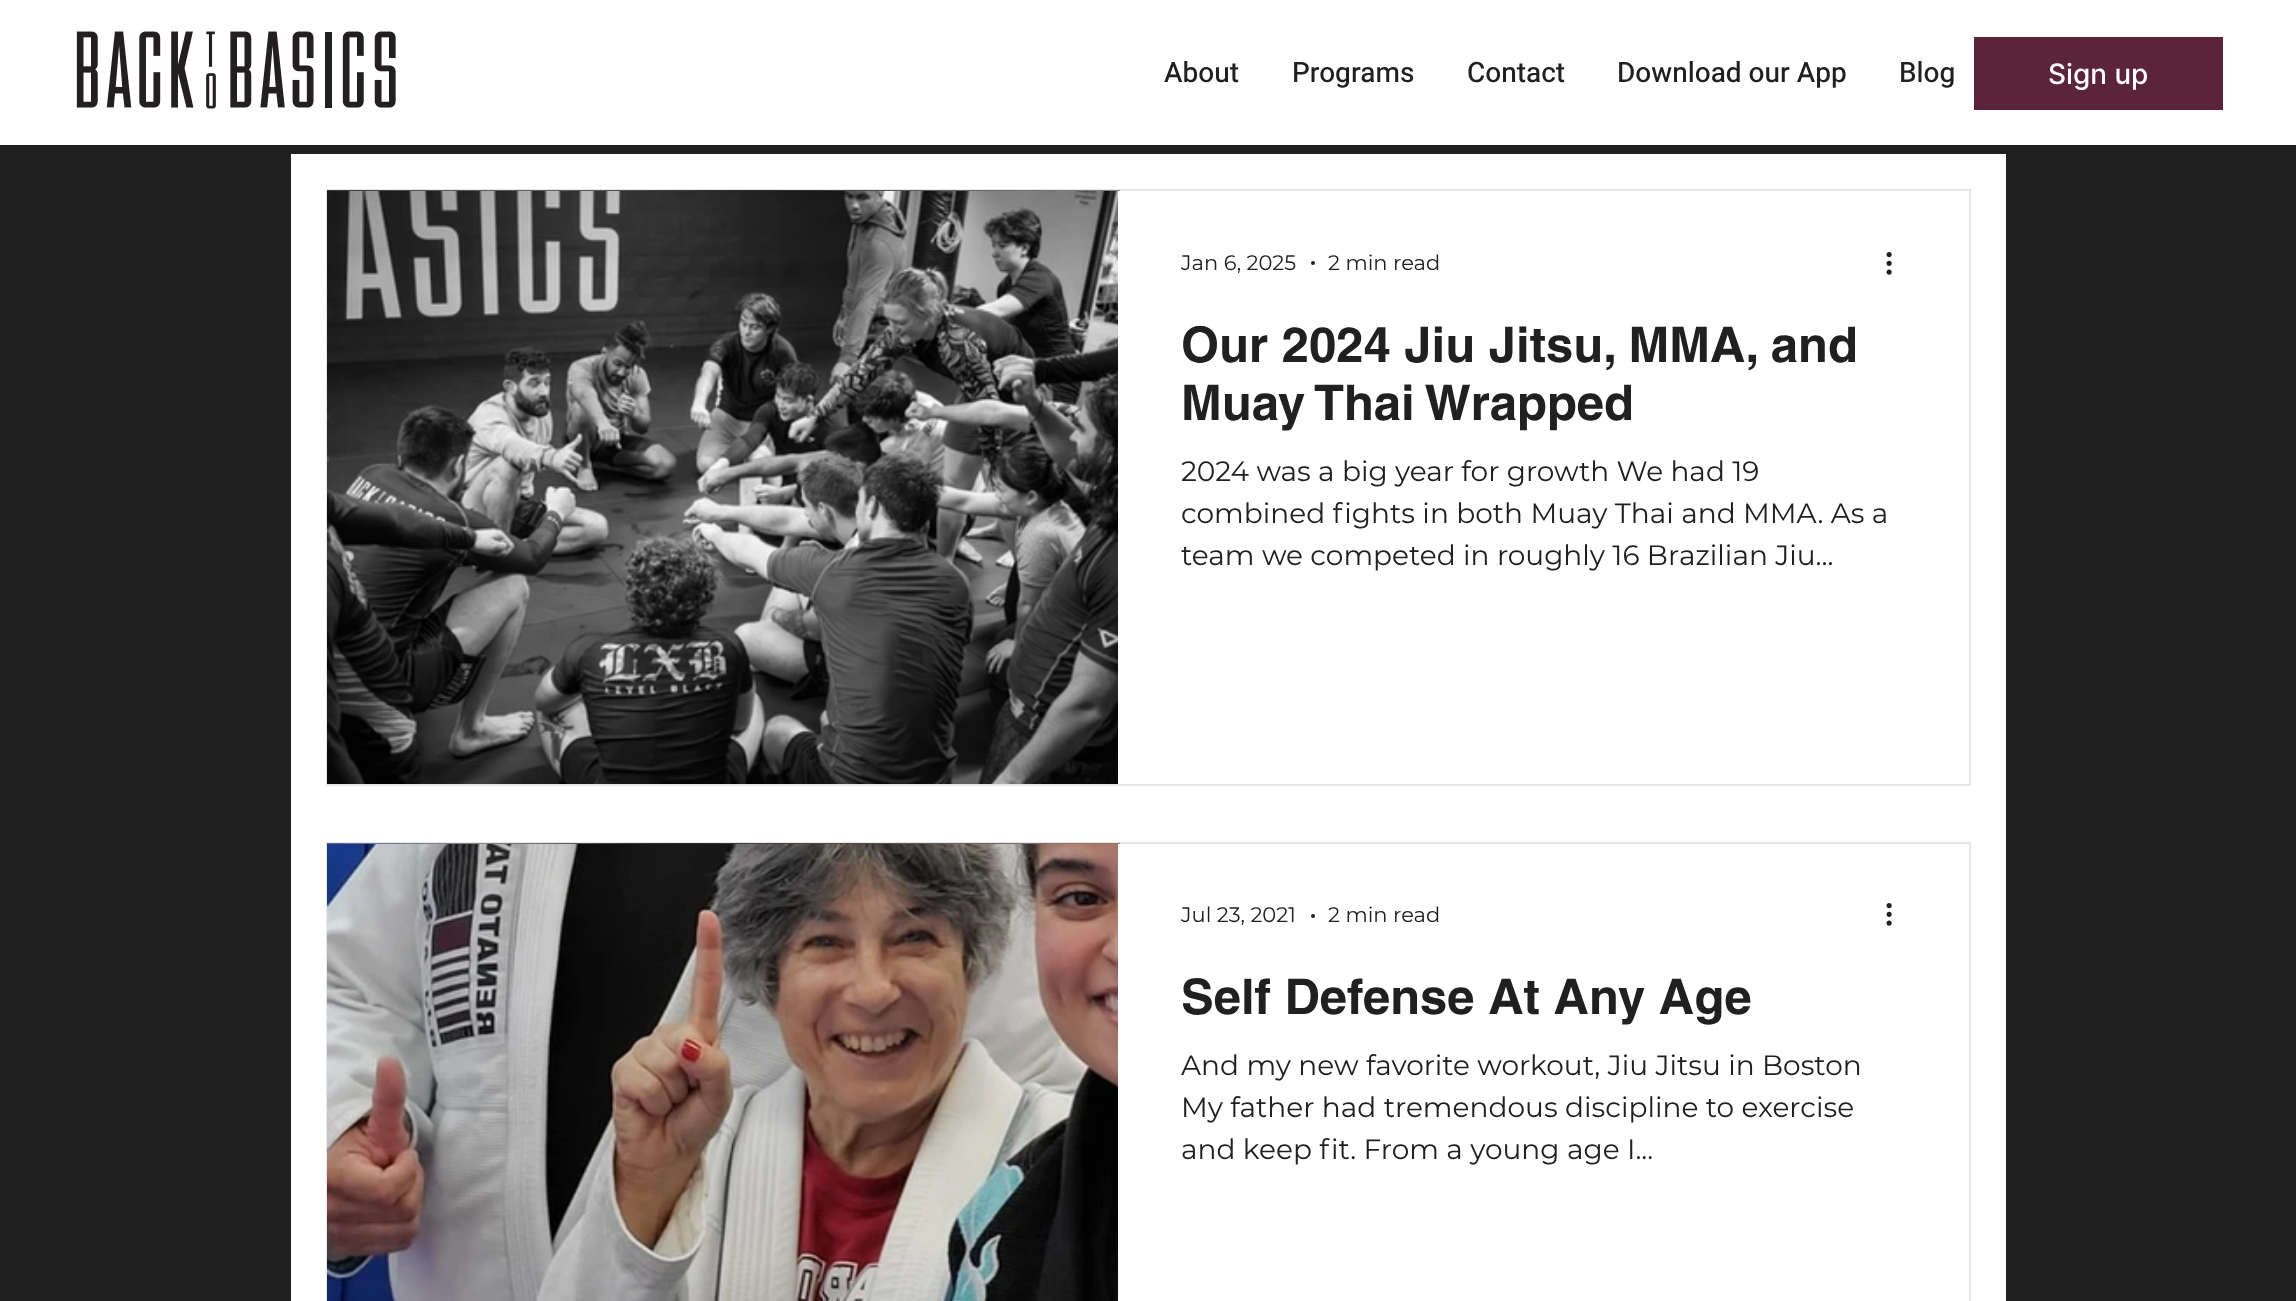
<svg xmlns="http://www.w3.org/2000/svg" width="2296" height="1301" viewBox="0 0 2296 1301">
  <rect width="100%" height="100%" fill="#202020"/>
  <path d="M0 0h2296v145H0z" fill="#fff"/>
  <image x="76" y="31" width="320" height="78" href="img/1.png"/>
  <path d="M1974 37h249v73H1974z" fill="#5b243a"/>
  <path d="M291 154h1715v1147H291z" fill="#fff"/>
  <path d="M327 190h1643v595H327z" fill="none" stroke="#e8e6e6" stroke-width="2"/>
  <image x="327" y="190" width="793" height="1" href="img/2.png"/>
  <image x="327" y="191" width="791" height="593" href="img/3.png"/>
  <circle cx="1313" cy="263" r="2" fill="#202020"/>
  <image x="1886" y="252" width="6" height="23" href="img/4.png"/>
  <path d="M327 843h1643v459H327z" fill="none" stroke="#e8e6e6" stroke-width="2"/>
  <image x="327" y="843" width="793" height="1" href="img/5.png"/>
  <image x="327" y="844" width="791" height="457" href="img/6.png"/>
  <circle cx="1313" cy="916" r="2" fill="#202020"/>
  <image x="1886" y="903" width="6" height="23" href="img/4.png"/>
  <g font-family="Heebo" font-size="28" font-weight="500" fill="#202020">
    <text x="1164" y="82">About</text>
    <text x="1292" y="82">Programs</text>
    <text x="1467" y="82">Contact</text>
    <text x="1617" y="82">Download our App</text>
    <text x="1899" y="82">Blog</text>
  </g>
  <text x="2048" y="84" font-family="Inter" font-size="28" font-weight="500" fill="#fff">Sign up</text>
  <g font-family="Montserrat" font-size="21" fill="#202020">
    <text x="1181" y="270">Jan 6, 2025</text>
    <text x="1328" y="270">2 min read</text>
  </g>
  <g font-family="helvetica" font-size="49" font-weight="bold" fill="#202020">
    <text x="1181" y="362">Our 2024 Jiu Jitsu, MMA, and</text>
    <text x="1181" y="420">Muay Thai Wrapped</text>
  </g>
  <g font-family="Montserrat" font-size="28" fill="#202020">
    <text x="1181" y="481">2024 was a big year for growth We had 19</text>
    <text x="1181" y="523">combined fights in both Muay Thai and MMA. As a</text>
    <text x="1181" y="565">team we competed in roughly 16 Brazilian Jiu...</text>
  </g>
  <g font-family="Montserrat" font-size="21" fill="#202020">
    <text x="1181" y="922">Jul 23, 2021</text>
    <text x="1328" y="922">2 min read</text>
  </g>
  <text x="1181" y="1014" font-family="helvetica" font-size="49" font-weight="bold" fill="#202020">Self Defense At Any Age</text>
  <g font-family="Montserrat" font-size="28" fill="#202020">
    <text x="1181" y="1075">And my new favorite workout, Jiu Jitsu in Boston</text>
    <text x="1181" y="1117">My father had tremendous discipline to exercise</text>
    <text x="1181" y="1159">and keep fit. From a young age I...</text>
  </g>
</svg>
